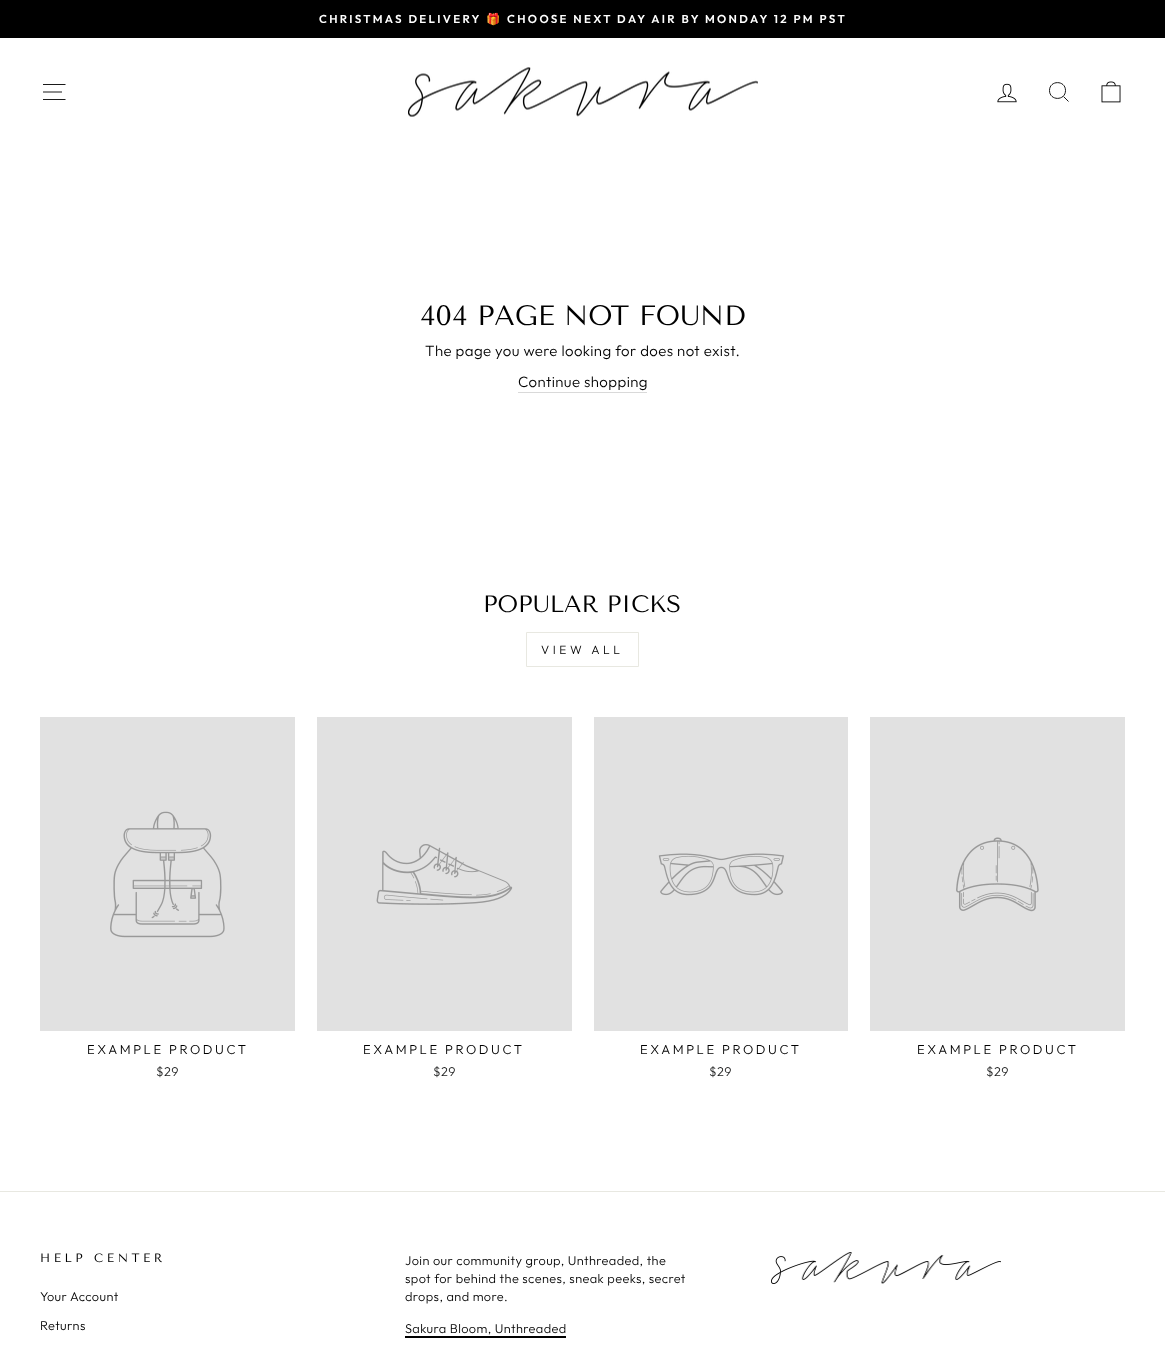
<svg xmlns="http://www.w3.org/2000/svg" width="1165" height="1355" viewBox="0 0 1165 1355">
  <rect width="100%" height="100%" fill="#fff"/>
  <path d="M0 0h1165v38H0z" fill="#000"/>
  <path d="M43 84.5H65.5M43 92H62M43 99.5H65.5" fill="none" stroke="#000" stroke-width="0.9"/>
  <image x="408" y="67" width="350" height="50" href="img/1.png"/>
  <image x="997" y="83" width="20" height="20" href="img/2.png"/>
  <path d="M1065.5 90.5C1065.5 101 1049.5 101 1049.5 90.5C1049.5 80 1065.5 80 1065.5 90.5ZM1068.5 101.5L1063.5 96.5" fill="none" stroke="#000" stroke-width="0.9"/>
  <image x="1101" y="81" width="20" height="22" href="img/3.png"/>
  <path d="M518 392h129v1H518z" fill="#d9d9d9"/>
  <path d="M526.5 632.5h112v34H526.5z" fill="none" stroke="#e8e8e1"/>
  <path d="M40 717h255v314H40z" fill="#e1e1e1"/>
  <image x="110" y="811" width="115" height="127" href="img/4.png"/>
  <path d="M317 717h255v314H317z" fill="#e1e1e1"/>
  <image x="376" y="844" width="137" height="61" href="img/5.png"/>
  <path d="M594 717h254v314H594z" fill="#e1e1e1"/>
  <image x="658" y="853" width="126" height="43" href="img/6.png"/>
  <path d="M870 717h255v314H870z" fill="#e1e1e1"/>
  <image x="956" y="837" width="83" height="75" href="img/7.png"/>
  <path d="M0 1191h1165v1H0z" fill="#e8e8e1"/>
  <path d="M405 1336h161v2H405z" fill="#000"/>
  <image x="771" y="1252" width="230" height="32" href="img/8.png"/>
  <text x="319" y="23" font-family="Outfit" font-size="11.5" font-weight="600" letter-spacing="2.3" fill="#fff">CHRISTMAS DELIVERY</text>
  <text x="486" y="23" font-family="Noto Color Emoji" font-size="11.5" font-weight="bold" letter-spacing="2.3" fill="#fff">🎁</text>
  <text x="507" y="23" font-family="Outfit" font-size="11.5" font-weight="600" letter-spacing="2.3" fill="#fff">CHOOSE NEXT DAY AIR BY MONDAY 12 PM PST</text>
  <text x="420" y="325" font-family="Tenor Sans" font-size="28" fill="#000">404 PAGE NOT FOUND</text>
  <g font-family="Outfit" font-size="15" font-weight="300" letter-spacing="0.4" fill="#000">
    <text x="425" y="356">The page you were looking for does not exist.</text>
    <text x="518" y="387">Continue shopping</text>
  </g>
  <text x="483" y="612" font-family="Tenor Sans" font-size="23.75" fill="#000">POPULAR PICKS</text>
  <text x="541" y="654" font-family="Outfit" font-size="12" font-weight="300" letter-spacing="3.6" fill="#000">VIEW ALL</text>
  <text x="87" y="1054" font-family="Outfit" font-size="13" font-weight="300" letter-spacing="2.6" fill="#000">EXAMPLE PRODUCT</text>
  <text x="156" y="1076" font-family="Outfit" font-size="12.75" font-weight="300" letter-spacing="0.4" fill="#1c1d1d">$29</text>
  <text x="363" y="1054" font-family="Outfit" font-size="13" font-weight="300" letter-spacing="2.6" fill="#000">EXAMPLE PRODUCT</text>
  <text x="433" y="1076" font-family="Outfit" font-size="12.75" font-weight="300" letter-spacing="0.4" fill="#1c1d1d">$29</text>
  <text x="640" y="1054" font-family="Outfit" font-size="13" font-weight="300" letter-spacing="2.6" fill="#000">EXAMPLE PRODUCT</text>
  <text x="709" y="1076" font-family="Outfit" font-size="12.75" font-weight="300" letter-spacing="0.4" fill="#1c1d1d">$29</text>
  <text x="917" y="1054" font-family="Outfit" font-size="13" font-weight="300" letter-spacing="2.6" fill="#000">EXAMPLE PRODUCT</text>
  <text x="986" y="1076" font-family="Outfit" font-size="12.75" font-weight="300" letter-spacing="0.4" fill="#1c1d1d">$29</text>
  <text x="40" y="1262" font-family="Tenor Sans" font-size="12" letter-spacing="3.6" fill="#000">HELP CENTER</text>
  <g font-family="Outfit" font-size="12.75" font-weight="300" letter-spacing="0.4" fill="#000">
    <text x="40" y="1301">Your Account</text>
    <text x="40" y="1330">Returns</text>
    <text x="405" y="1265">Join our community group, Unthreaded, the</text>
    <text x="405" y="1283">spot for behind the scenes, sneak peeks, secret</text>
    <text x="405" y="1301">drops, and more.</text>
    <text x="405" y="1333">Sakura Bloom, Unthreaded</text>
  </g>
</svg>
